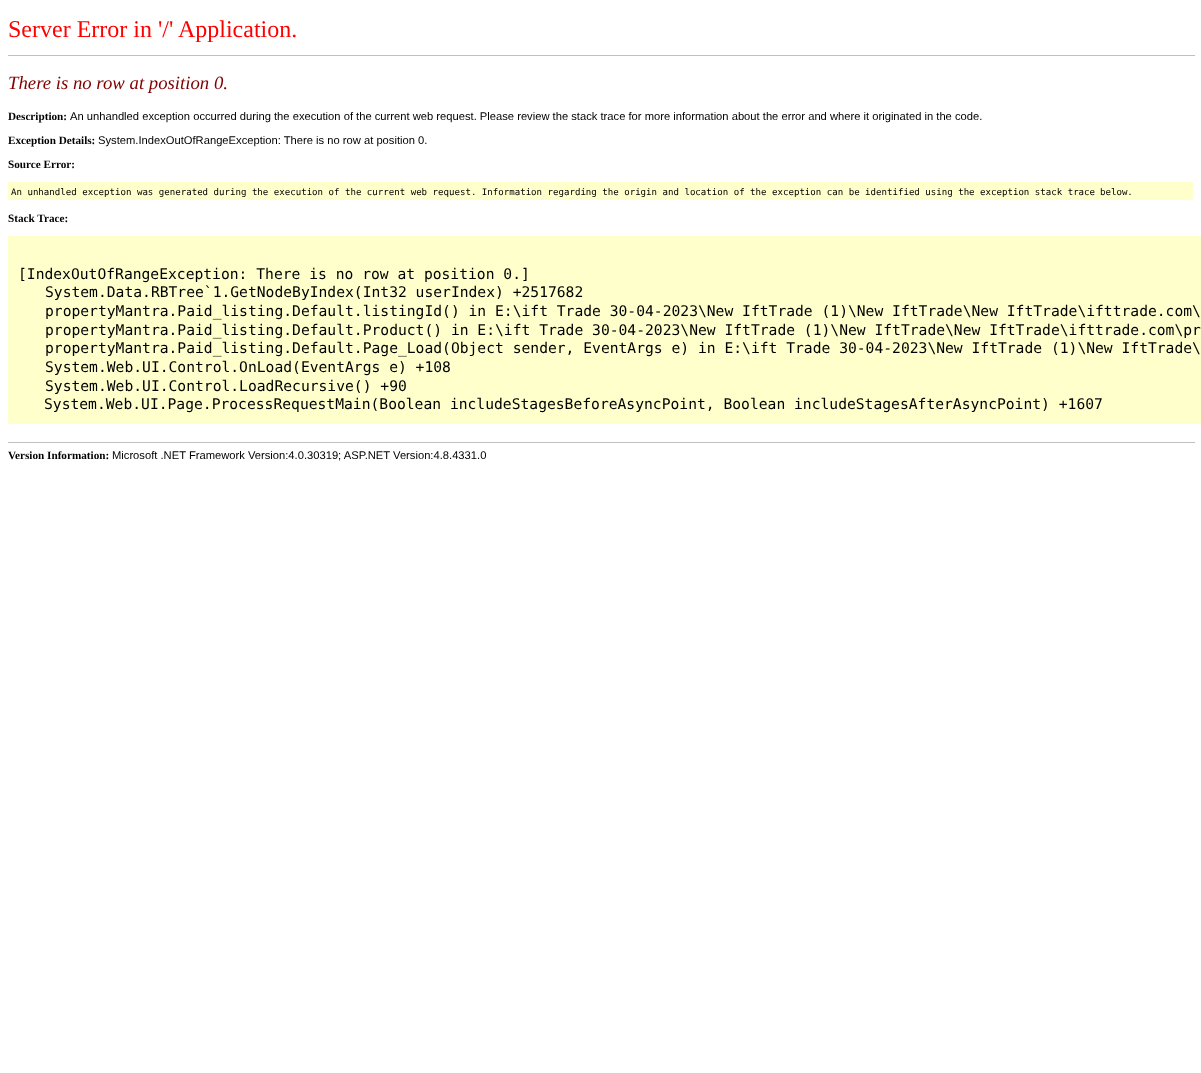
<svg xmlns="http://www.w3.org/2000/svg" width="1201" height="1073" viewBox="0 0 1201 1073">
  <rect width="100%" height="100%" fill="#fff"/>
  <path d="M8 55h1187v1H8z" fill="#c0c0c0"/>
  <path d="M8 182h1185v18H8z" fill="#ffc"/>
  <path d="M8 236h1193v188H8z" fill="#ffc"/>
  <path d="M8 442h1187v1H8z" fill="#c0c0c0"/>
  <text x="8" y="37" font-family="Liberation Serif" font-size="24" fill="#f00">Server Error in '/' Application.</text>
  <text x="8" y="89" font-family="Liberation Serif" font-size="18.75" font-style="italic" fill="#800000">There is no row at position 0.</text>
  <text x="8" y="120" font-family="Liberation Serif" font-size="11.2" font-weight="bold" fill="#000">Description:</text>
  <text x="70" y="120" font-family="Liberation Sans" font-size="11.2" fill="#000">An unhandled exception occurred during the execution of the current web request. Please review the stack trace for more information about the error and where it originated in the code.</text>
  <text x="8" y="144" font-family="Liberation Serif" font-size="11.2" font-weight="bold" fill="#000">Exception Details:</text>
  <text x="98" y="144" font-family="Liberation Sans" font-size="11.2" fill="#000">System.IndexOutOfRangeException: There is no row at position 0.</text>
  <text x="8" y="168" font-family="Liberation Serif" font-size="11.2" font-weight="bold" fill="#000">Source Error:</text>
  <text x="11" y="195" font-family="DejaVu Sans Mono" font-size="9.1" fill="#000">An unhandled exception was generated during the execution of the current web request. Information regarding the origin and location of the exception can be identified using the exception stack trace</text>
  <text x="1100" y="195" font-family="DejaVu Sans Mono" font-size="9.1" fill="#000">below.</text>
  <text x="8" y="222" font-family="Liberation Serif" font-size="11.2" font-weight="bold" fill="#000">Stack Trace:</text>
  <g font-family="DejaVu Sans Mono" font-size="14.67" fill="#000">
    <text x="18" y="279">[IndexOutOfRangeException: There is no row at position 0.]</text>
    <text x="45" y="297">System.Data.RBTree`1.GetNodeByIndex(Int32 userIndex) +2517682</text>
    <text x="45" y="316">propertyMantra.Paid_listing.Default.listingId() in E:\ift Trade 30-04-2023\New IftTrade (1)\New IftTrade\New IftTrade\ifttrade.com\</text>
    <text x="45" y="335">propertyMantra.Paid_listing.Default.Product() in E:\ift Trade 30-04-2023\New IftTrade (1)\New IftTrade\New IftTrade\ifttrade.com\pr</text>
    <text x="45" y="353">propertyMantra.Paid_listing.Default.Page_Load(Object sender, EventArgs e) in E:\ift Trade 30-04-2023\New IftTrade (1)\New IftTrade\</text>
    <text x="45" y="372">System.Web.UI.Control.OnLoad(EventArgs e) +108</text>
    <text x="45" y="391">System.Web.UI.Control.LoadRecursive() +90</text>
    <text x="44" y="409">System.Web.UI.Page.ProcessRequestMain(Boolean includeStagesBeforeAsyncPoint, Boolean includeStagesAfterAsyncPoint) +1607</text>
  </g>
  <text x="8" y="459" font-family="Liberation Serif" font-size="11.2" font-weight="bold" fill="#000">Version Information:</text>
  <text x="112" y="459" font-family="Liberation Sans" font-size="11.2" fill="#000">Microsoft .NET Framework Version:4.0.30319; ASP.NET Version:4.8.4331.0</text>
</svg>
